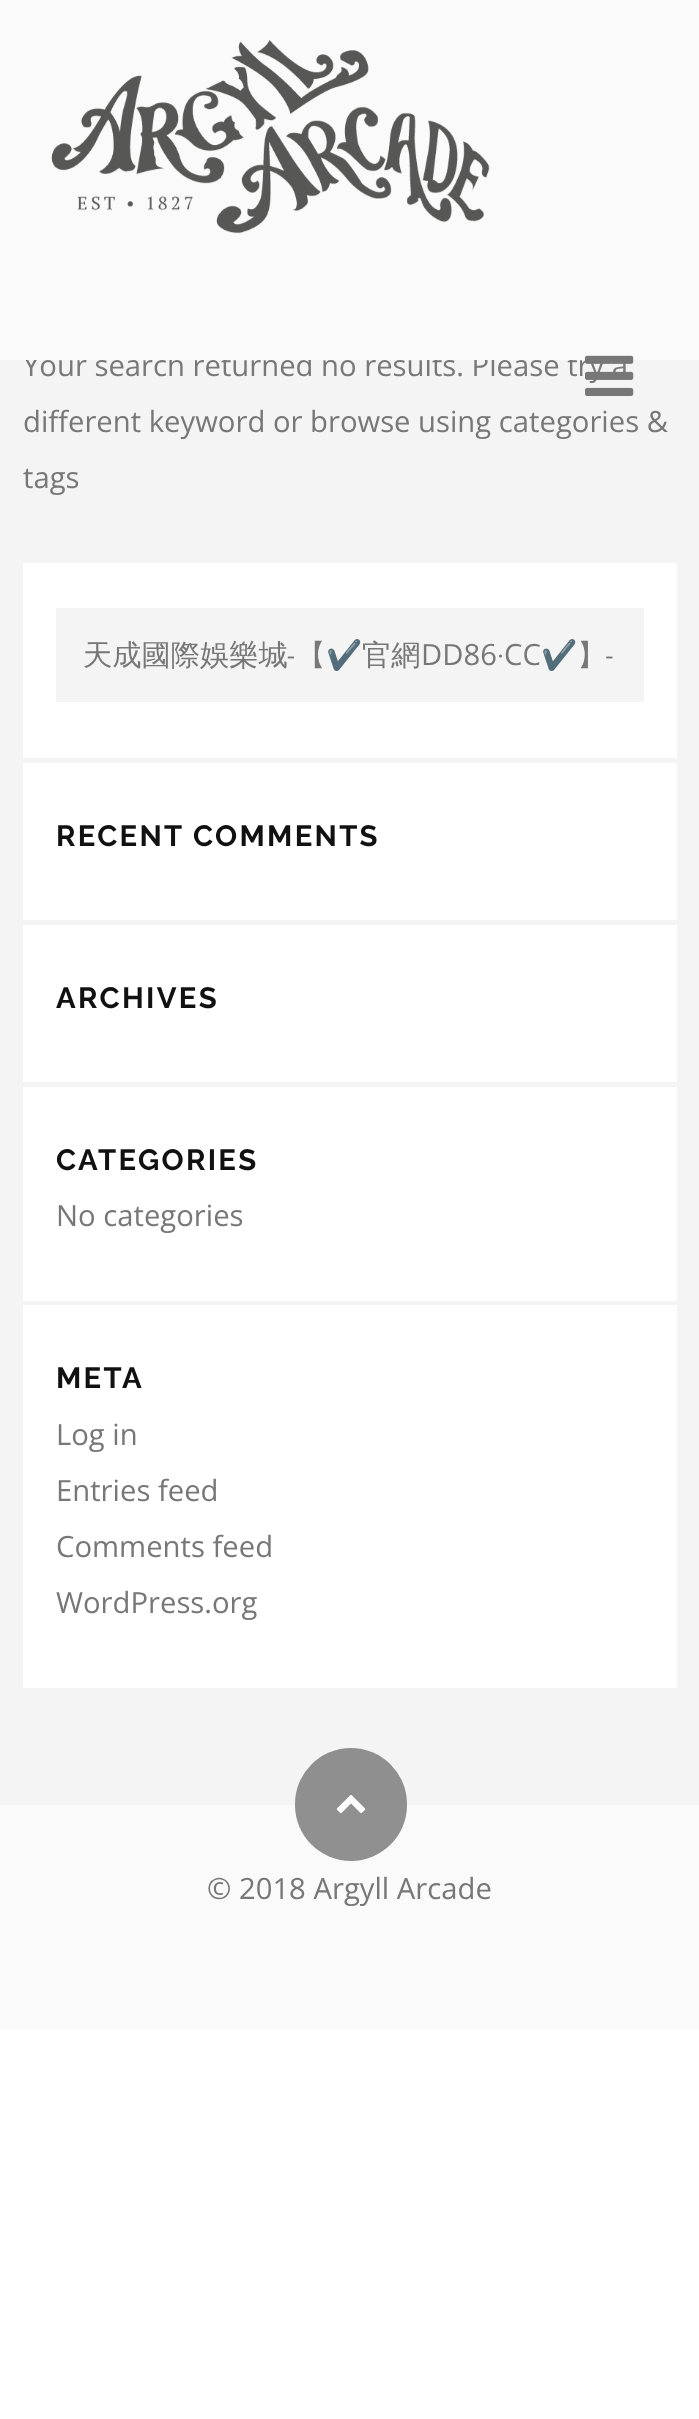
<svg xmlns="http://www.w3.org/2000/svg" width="699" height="2419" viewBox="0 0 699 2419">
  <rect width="100%" height="100%" fill="#fff"/>
  <path d="M0 360h699v1445H0z" fill="#f4f4f4"/>
  <path d="M23 563h654v195H23z" fill="#fff"/>
  <path d="M56 608h588v94H56z" fill="#f4f4f4"/>
  <path d="M23 763h654v157H23z" fill="#fff"/>
  <path d="M23 925h654v157H23z" fill="#fff"/>
  <path d="M23 1087h654v214H23z" fill="#fff"/>
  <path d="M23 1305h654v383H23z" fill="#fff"/>
  <path d="M0 1805h699v225H0z" fill="#fafafa"/>
  <rect x="295" y="1748" width="112" height="113" rx="56" fill="#848484e6"/>
  <image x="336" y="1795" width="30" height="19" href="img/3.png"/>
  <text x="23" y="376" font-family="Open Sans" font-size="29.25" fill="#777">Your search returned no results. Please try a</text>
  <path d="M0 0h699v360H0z" fill="#fafafa"/>
  <image x="585" y="355" width="49" height="41" href="img/2.png"/>
  <image x="51" y="40" width="439" height="194" href="img/1.png"/>
  <g font-family="Open Sans" font-size="29.25" fill="#777">
    <text x="23" y="432">different keyword or browse using categories &amp;</text>
    <text x="23" y="488">tags</text>
  </g>
  <text x="83" y="665" font-family="WenQuanYi Zen Hei" font-size="29.25" font-weight="500" fill="#777">天成國際娛樂城-【</text>
  <text x="326" y="665" font-family="Noto Color Emoji" font-size="29.25" fill="#777">✔️</text>
  <text x="362" y="665" font-family="WenQuanYi Zen Hei" font-size="29.25" font-weight="500" fill="#777">官網</text>
  <text x="421" y="665" font-family="Open Sans" font-size="29.25" fill="#777">DD86</text>
  <text x="497" y="665" font-family="WenQuanYi Zen Hei" font-size="29.25" font-weight="500" fill="#777">·</text>
  <text x="504" y="665" font-family="Open Sans" font-size="29.25" fill="#777">CC</text>
  <text x="541" y="665" font-family="Noto Color Emoji" font-size="29.25" fill="#777">✔️</text>
  <text x="577" y="665" font-family="WenQuanYi Zen Hei" font-size="29.25" font-weight="500" fill="#777">】-</text>
  <g font-family="Raleway" font-size="29.25" font-weight="bold" letter-spacing="2.3" fill="#111">
    <text x="56" y="846">RECENT COMMENTS</text>
    <text x="56" y="1008">ARCHIVES</text>
    <text x="56" y="1170">CATEGORIES</text>
  </g>
  <text x="56" y="1226" font-family="Open Sans" font-size="29.25" fill="#777">No categories</text>
  <text x="56" y="1388" font-family="Raleway" font-size="29.25" font-weight="bold" letter-spacing="2.3" fill="#111">META</text>
  <g font-family="Open Sans" font-size="29.25" fill="#777">
    <text x="56" y="1445">Log in</text>
    <text x="56" y="1501">Entries feed</text>
    <text x="56" y="1557">Comments feed</text>
    <text x="56" y="1613">WordPress.org</text>
    <text x="207" y="1899">© 2018 Argyll Arcade</text>
  </g>
</svg>
